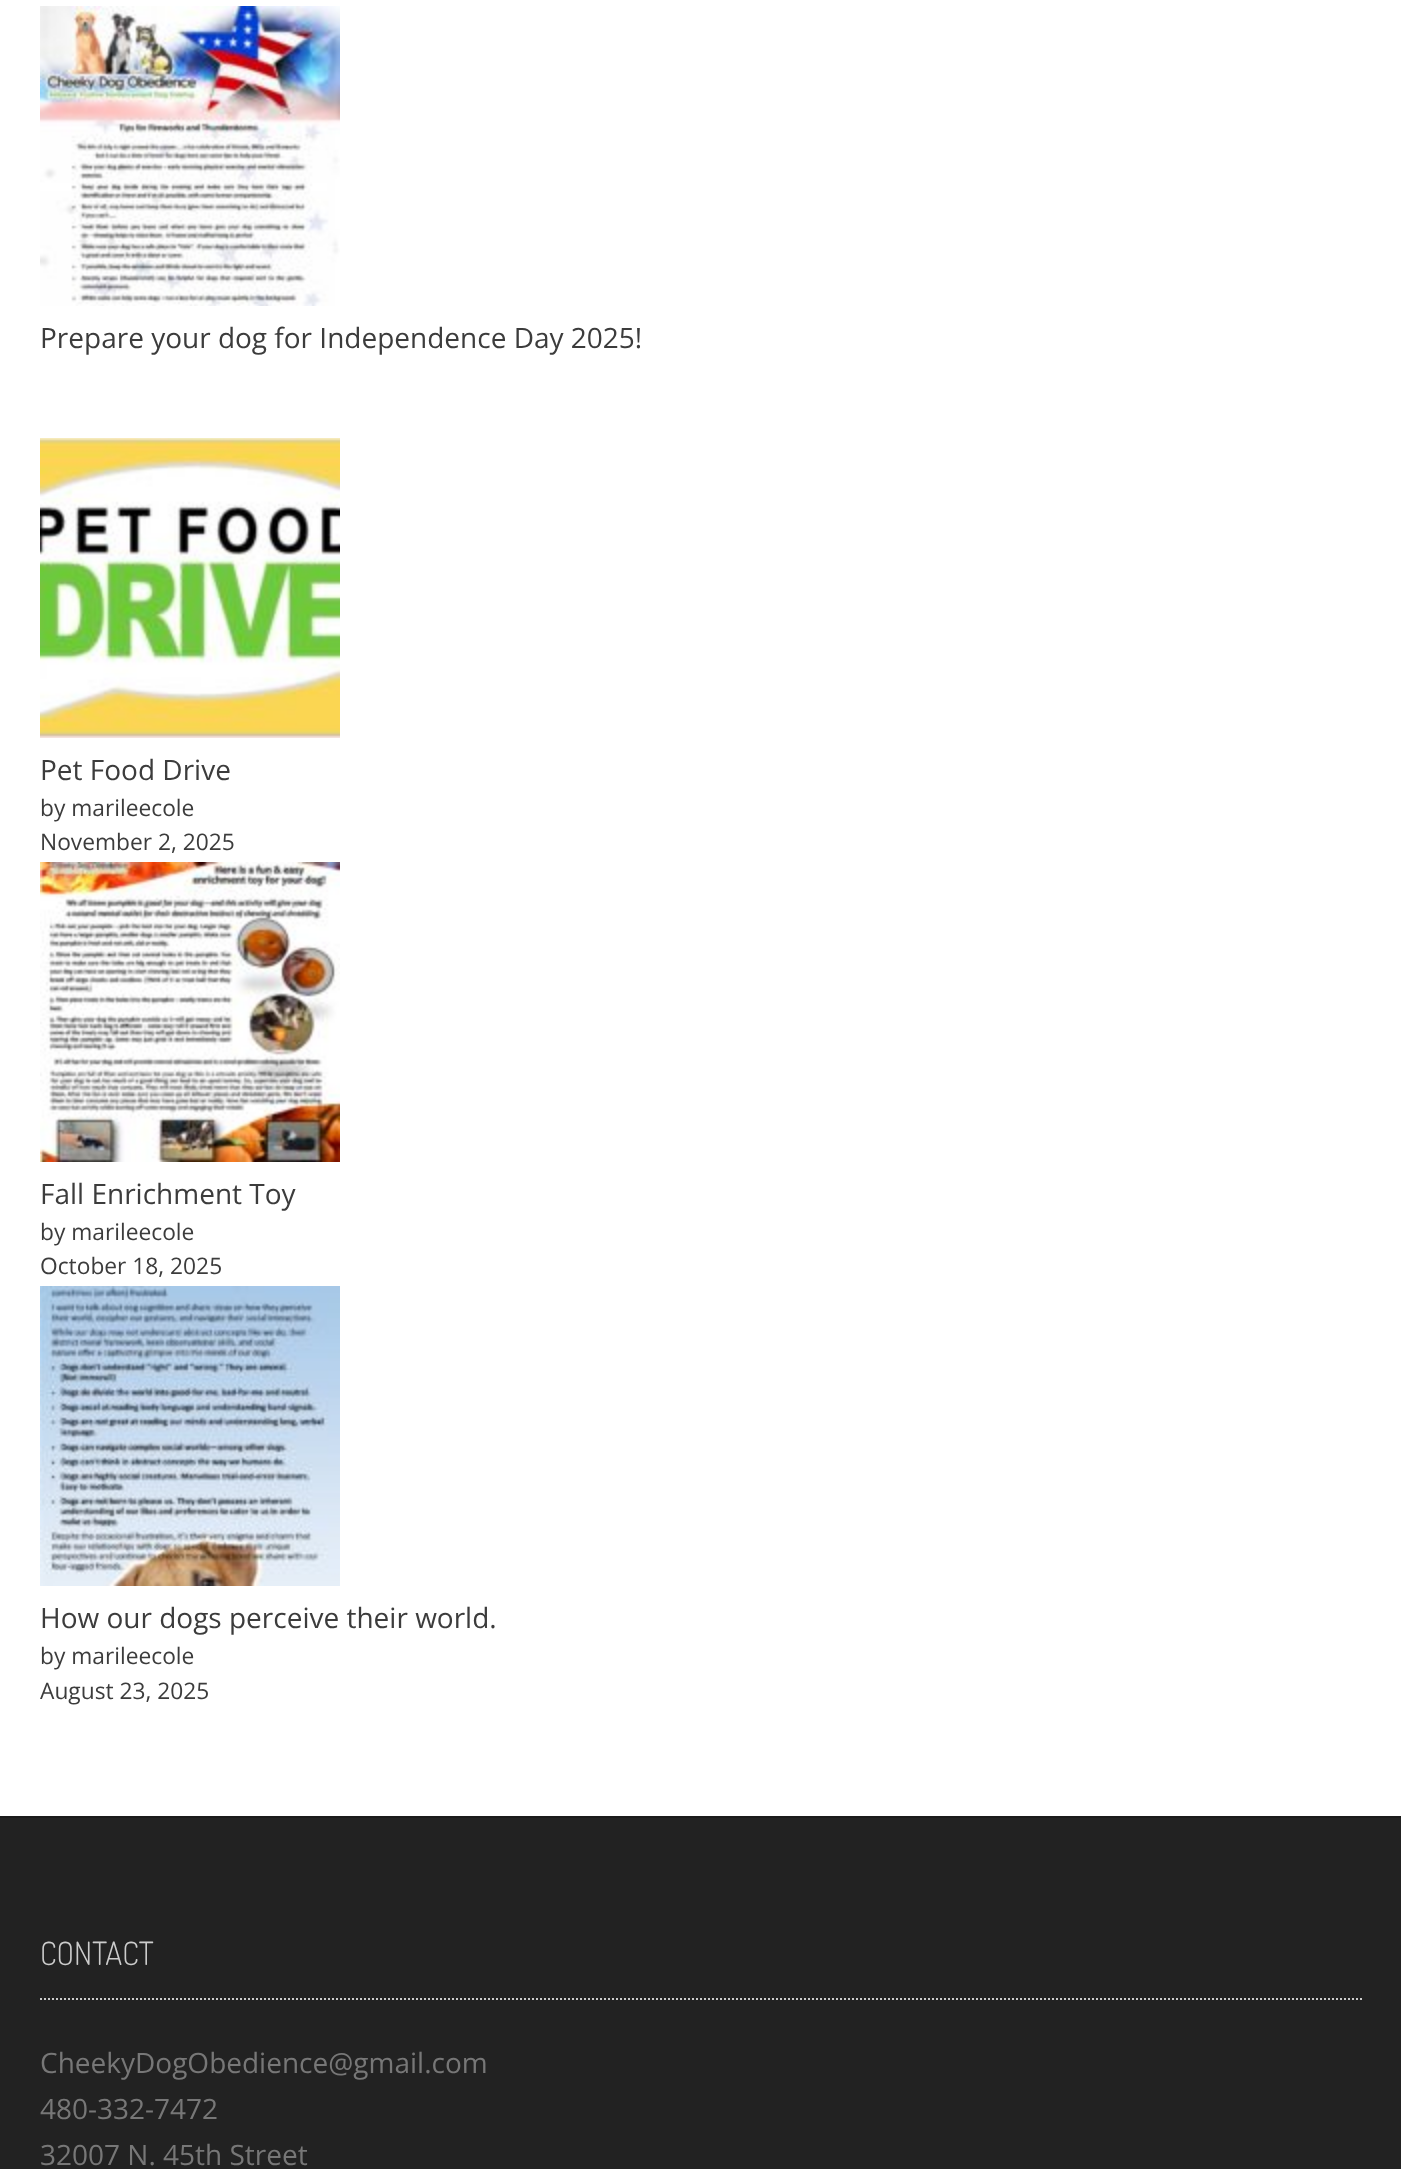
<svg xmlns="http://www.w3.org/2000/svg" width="1401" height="2169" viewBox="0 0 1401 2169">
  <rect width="100%" height="100%" fill="#fff"/>
  <image x="40" y="6" width="300" height="300" href="img/1.png"/>
  <image x="40" y="438" width="300" height="300" href="img/2.png"/>
  <image x="40" y="862" width="300" height="300" href="img/3.png"/>
  <image x="40" y="1286" width="300" height="300" href="img/4.png"/>
  <path d="M0 1818h1401v351H0z" fill="#222"/>
  <path d="M0 1816h1401v2H0z" fill="#1b1b1b"/>
  <path d="M40 1999H1362" fill="none" stroke="#ccc" stroke-width="2" stroke-dasharray="2 2"/>
  <g font-family="Open Sans" font-size="28" fill="#3c3c3c">
    <text x="40" y="348">Prepare your dog for Independence Day 2025!</text>
    <text x="40" y="780">Pet Food Drive</text>
  </g>
  <g font-family="Open Sans" font-size="22.75" fill="#3c3c3c">
    <text x="40" y="816">by marileecole</text>
    <text x="40" y="850">November 2, 2025</text>
  </g>
  <text x="40" y="1204" font-family="Open Sans" font-size="28" fill="#3c3c3c">Fall Enrichment Toy</text>
  <g font-family="Open Sans" font-size="22.75" fill="#3c3c3c">
    <text x="40" y="1240">by marileecole</text>
    <text x="40" y="1274">October 18, 2025</text>
  </g>
  <text x="40" y="1628" font-family="Open Sans" font-size="28" fill="#3c3c3c">How our dogs perceive their world.</text>
  <g font-family="Open Sans" font-size="22.75" fill="#3c3c3c">
    <text x="40" y="1664">by marileecole</text>
    <text x="40" y="1699">August 23, 2025</text>
  </g>
  <text x="40" y="1965" font-family="Dosis" font-size="32" font-weight="300" fill="#ccc">CONTACT</text>
  <g font-family="Open Sans" font-size="28" fill="#777">
    <text x="40" y="2073">CheekyDogObedience@gmail.com</text>
    <text x="40" y="2119">480-332-7472</text>
    <text x="40" y="2165">32007 N. 45th Street</text>
  </g>
</svg>
